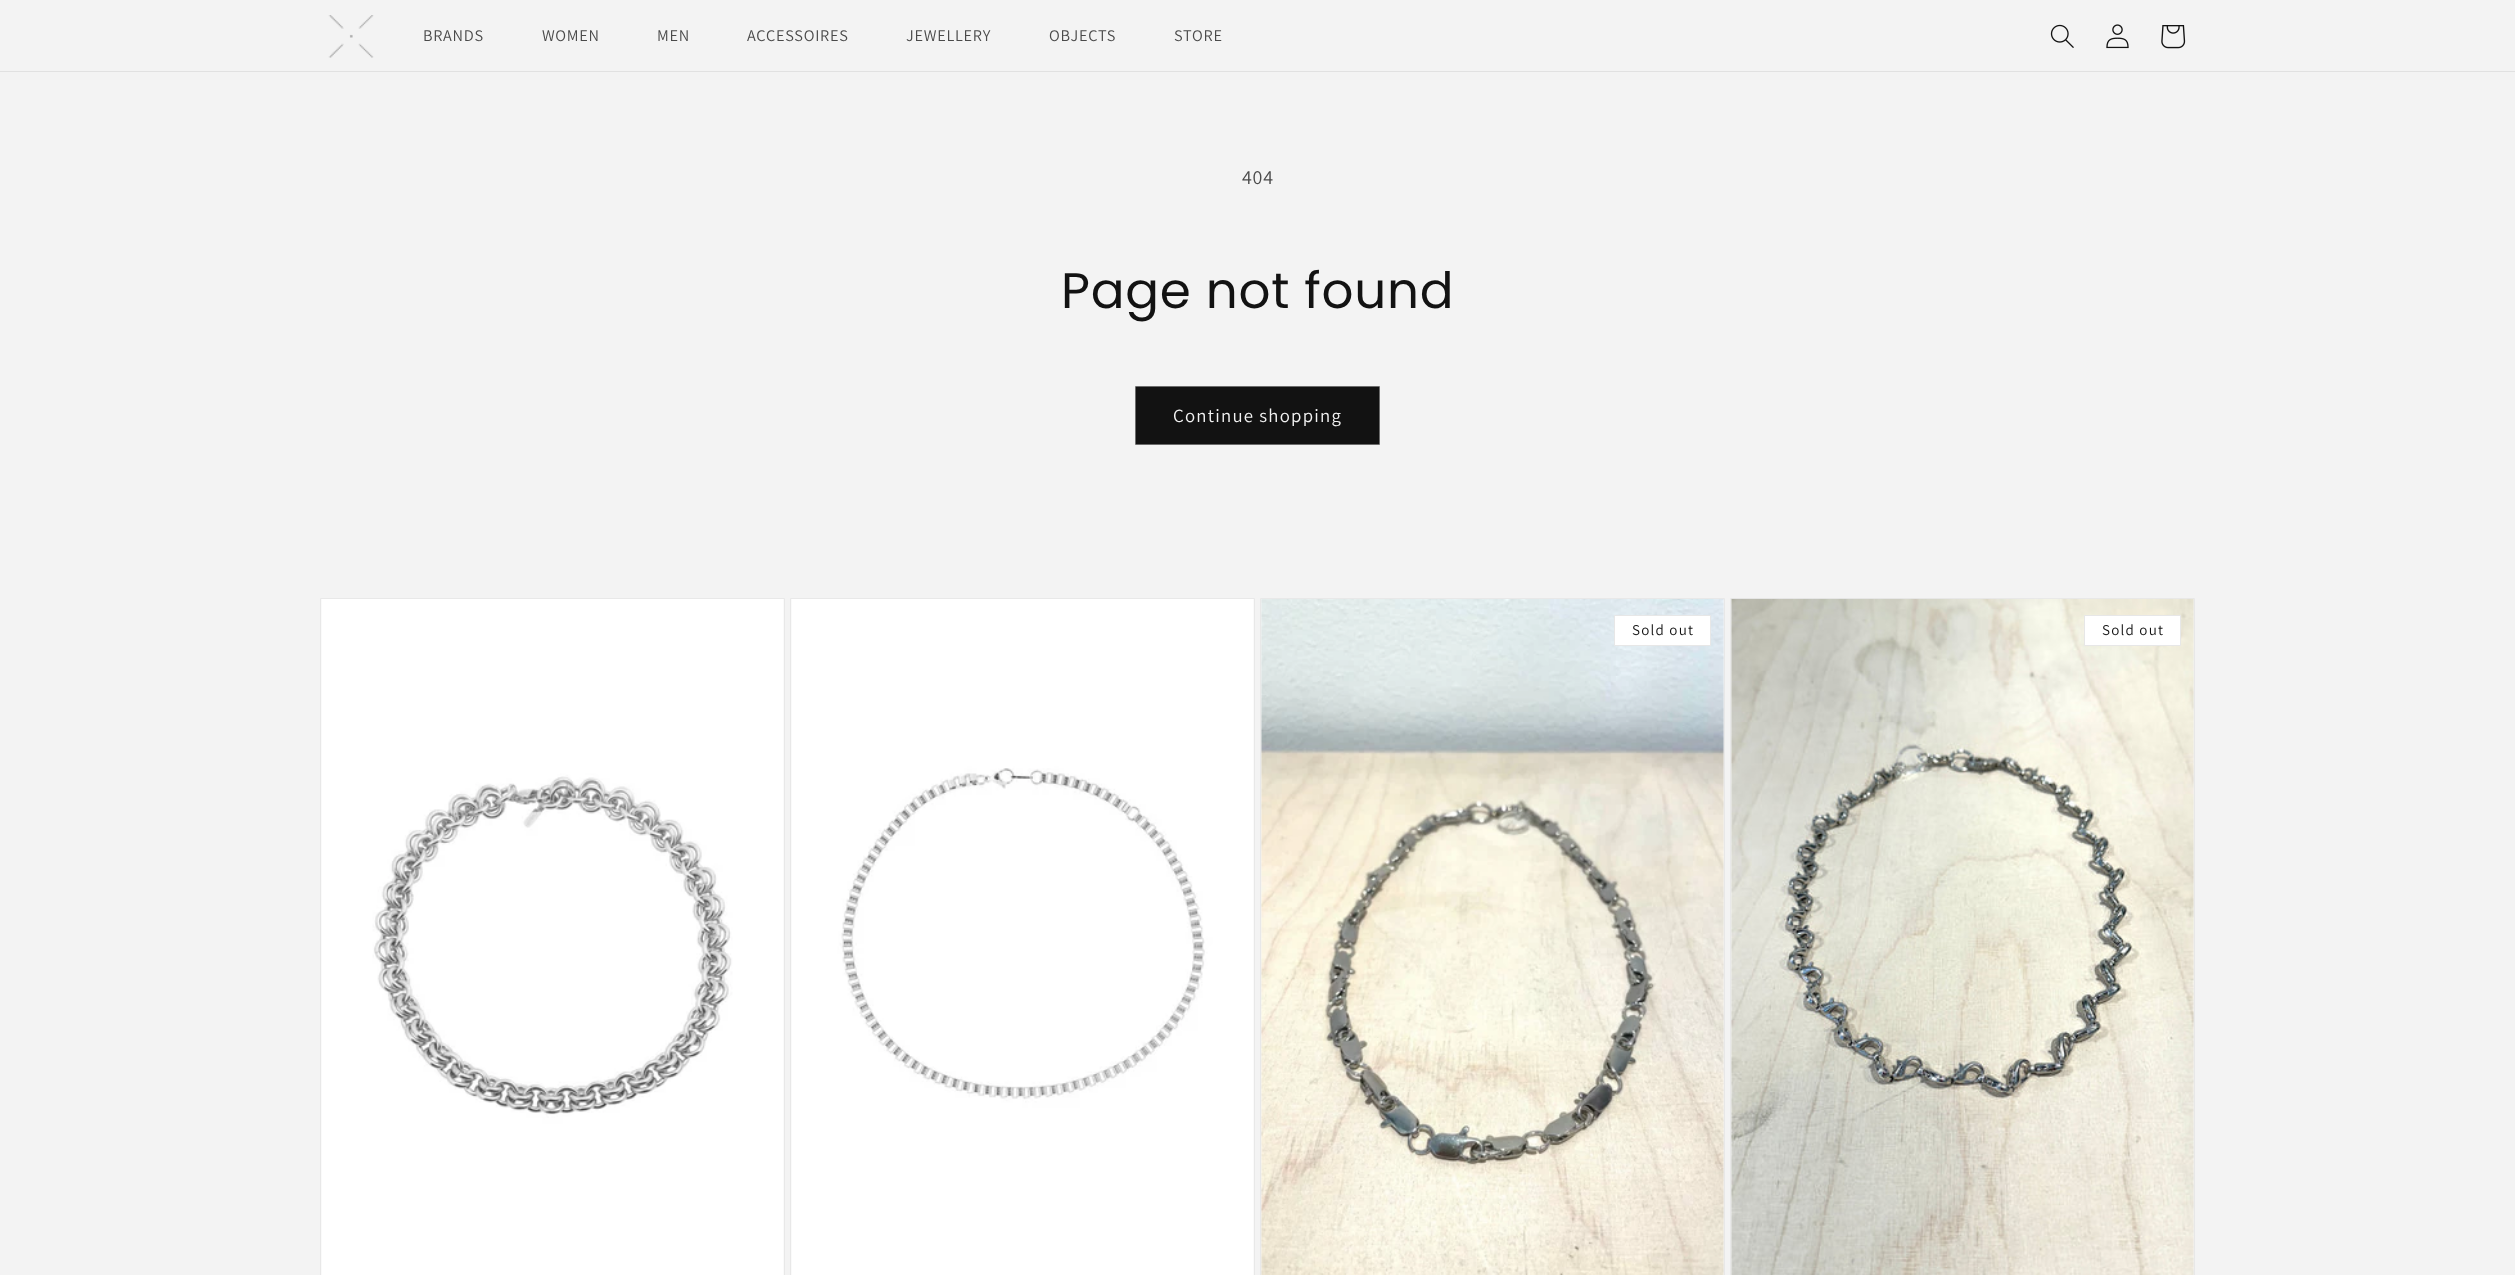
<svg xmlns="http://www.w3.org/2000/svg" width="2515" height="1275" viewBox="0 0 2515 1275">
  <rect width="100%" height="100%" fill="#f3f3f3"/>
  <path d="M0 71h2515v1H0z" fill="#e1e1e1"/>
  <image x="328" y="15" width="46" height="43" href="img/1.png"/>
  <image x="2050" y="24" width="24" height="24" href="img/2.png"/>
  <image x="2106" y="24" width="23" height="25" href="img/3.png"/>
  <image x="2161" y="25" width="25" height="24" href="img/4.png"/>
  <path d="M1136 387h243v57H1136z" fill="#121212"/>
  <path d="M1135.5 386.5h244v58H1135.5z" fill="none" stroke="#6c6c6c"/>
  <path d="M320.5 598.5h464v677H320.5z" fill="none" stroke="#e8e8e8"/>
  <image x="321" y="599" width="463" height="676" href="img/5.png"/>
  <path d="M790.5 598.5h464v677H790.5z" fill="none" stroke="#e8e8e8"/>
  <image x="791" y="599" width="463" height="676" href="img/6.png"/>
  <path d="M1260.5 598.5h464v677H1260.5z" fill="none" stroke="#e8e8e8"/>
  <image x="1261" y="599" width="463" height="676" href="img/7.png"/>
  <path d="M1614.5 615.5h96v30H1614.5z" fill="#fff" stroke="#e7e7e7"/>
  <path d="M1730.5 598.5h464v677H1730.5z" fill="none" stroke="#e8e8e8"/>
  <image x="1731" y="598" width="463" height="677" href="img/8.png"/>
  <path d="M2084.5 615.5h96v30H2084.5z" fill="#fff" stroke="#e7e7e7"/>
  <g font-family="Assistant" font-size="16.25" letter-spacing="0.75" fill="#4a4a4a">
    <text x="423" y="41">BRANDS</text>
    <text x="542" y="41">WOMEN</text>
    <text x="657" y="41">MEN</text>
    <text x="747" y="41">ACCESSOIRES</text>
    <text x="906" y="41">JEWELLERY</text>
    <text x="1049" y="41">OBJECTS</text>
    <text x="1174" y="41">STORE</text>
  </g>
  <text x="1242" y="184" font-family="Assistant" font-size="20" letter-spacing="0.75" fill="#4a4a4a">404</text>
  <text x="1061" y="308" font-family="Poppins" font-size="50" letter-spacing="0.75" fill="#121212">Page not found</text>
  <text x="1173" y="422" font-family="Assistant" font-size="18.75" letter-spacing="1.25" fill="#f3f3f3">Continue shopping</text>
  <g font-family="Assistant" font-size="15" letter-spacing="1.25" fill="#121212">
    <text x="1632" y="635">Sold out</text>
    <text x="2102" y="635">Sold out</text>
  </g>
</svg>
